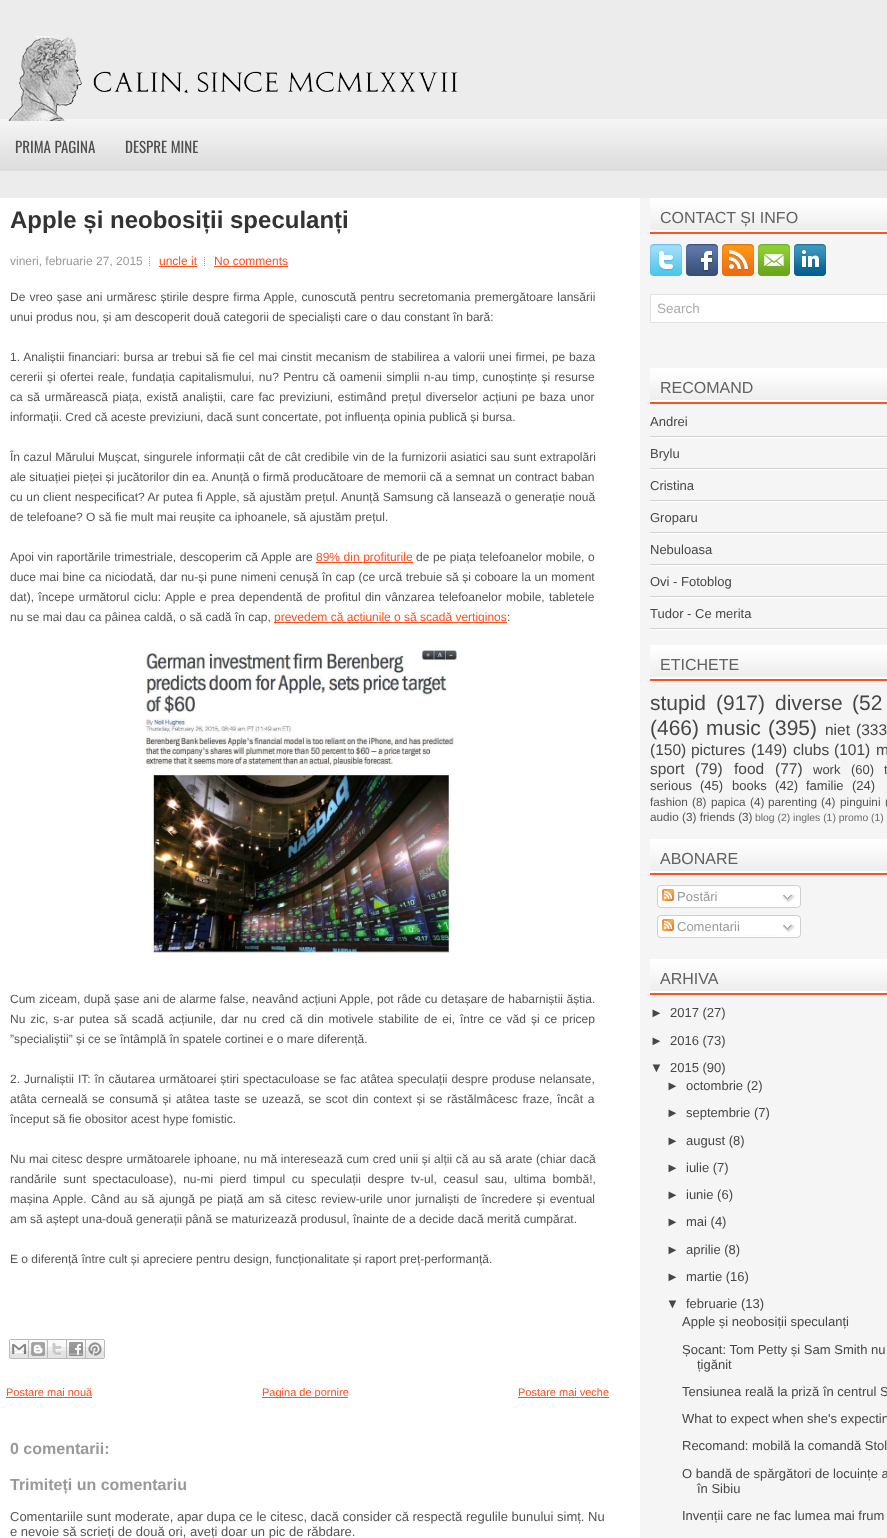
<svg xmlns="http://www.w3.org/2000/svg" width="887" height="1538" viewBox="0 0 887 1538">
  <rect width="100%" height="100%" fill="#fff"/>
  <image x="0" y="0" width="887" height="198" href="img/1.png"/>
  <image x="8" y="36" width="450" height="85" href="img/2.png"/>
  <image x="149" y="257" width="1" height="9" href="img/3.png"/>
  <path d="M159 266h38v1H159z" fill="#ff4f1f"/>
  <image x="204" y="257" width="1" height="9" href="img/3.png"/>
  <path d="M214 266h74v1H214z" fill="#ff4f1f"/>
  <path d="M316 562h97v1H316z" fill="#ff4f1f"/>
  <path d="M274 622h233v1H274z" fill="#ff4f1f"/>
  <image x="143" y="647" width="315" height="307" href="img/4.png"/>
  <image x="9" y="1339" width="20" height="20" href="img/5.png"/>
  <image x="29" y="1339" width="19" height="20" href="img/6.png"/>
  <image x="48" y="1339" width="19" height="20" href="img/7.png"/>
  <image x="67" y="1339" width="19" height="20" href="img/8.png"/>
  <image x="86" y="1339" width="19" height="20" href="img/9.png"/>
  <path d="M6 1397h86v1H6z" fill="#ff4f1f"/>
  <path d="M262 1397h86v1H262z" fill="#ff4f1f"/>
  <path d="M518 1397h91v1H518z" fill="#ff4f1f"/>
  <path d="M640 198h247v1340H640z" fill="#f5f5f5"/>
  <image x="650" y="198" width="237" height="36" href="img/10.png"/>
  <image x="650" y="244" width="32" height="32" href="img/11.png"/>
  <image x="686" y="244" width="32" height="32" href="img/12.png"/>
  <image x="722" y="244" width="32" height="32" href="img/13.png"/>
  <image x="758" y="244" width="32" height="32" href="img/14.png"/>
  <image x="794" y="244" width="32" height="32" href="img/15.png"/>
  <path d="M650.5 294.5h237v28H650.5z" fill="#fff" stroke="#e1e1e1"/>
  <image x="650" y="368" width="237" height="36" href="img/10.png"/>
  <image x="650" y="436" width="237" height="2" href="img/16.png"/>
  <image x="650" y="468" width="237" height="2" href="img/16.png"/>
  <image x="650" y="500" width="237" height="2" href="img/16.png"/>
  <image x="650" y="532" width="237" height="2" href="img/16.png"/>
  <image x="650" y="564" width="237" height="2" href="img/16.png"/>
  <image x="650" y="596" width="237" height="2" href="img/16.png"/>
  <image x="650" y="628" width="237" height="2" href="img/16.png"/>
  <image x="650" y="645" width="237" height="36" href="img/10.png"/>
  <image x="650" y="839" width="237" height="36" href="img/10.png"/>
  <image x="657" y="885" width="144" height="20" href="img/17.png"/>
  <image x="662" y="889" width="12" height="12" href="img/18.png"/>
  <image x="782" y="894" width="13" height="9" href="img/19.png"/>
  <image x="657" y="905" width="144" height="3" href="img/20.png"/>
  <image x="657" y="915" width="144" height="20" href="img/17.png"/>
  <image x="662" y="919" width="12" height="12" href="img/18.png"/>
  <image x="782" y="924" width="13" height="9" href="img/19.png"/>
  <image x="657" y="935" width="144" height="3" href="img/20.png"/>
  <image x="650" y="959" width="237" height="36" href="img/10.png"/>
  <g font-family="Oswald" font-size="15" fill="#4f4f4f">
    <text x="15" y="153">PRIMA PAGINA</text>
    <text x="125" y="153">DESPRE MINE</text>
  </g>
  <text x="10" y="228" font-family="Liberation Sans" font-size="24" font-weight="bold" fill="#333">Apple și neobosiții speculanți</text>
  <text x="10" y="265" font-family="Liberation Sans" font-size="12" fill="#999">vineri, februarie 27, 2015</text>
  <g font-family="Liberation Sans" font-size="12" fill="#ff4f1f">
    <text x="159" y="265">uncle it</text>
    <text x="214" y="265">No comments</text>
  </g>
  <g font-family="Liberation Sans" font-size="12" fill="#555">
    <text x="10" y="301" word-spacing="0.75">De vreo șase ani urmăresc știrile despre firma Apple, cunoscută pentru secretomania premergătoare lansării</text>
    <text x="10" y="321">unui produs nou, și am descoperit două categorii de specialiști care o dau constant în bară:</text>
    <text x="10" y="361" word-spacing="0.5">1. Analiștii financiari: bursa ar trebui să fie cel mai cinstit mecanism de stabilirea a valorii unei firmei, pe baza</text>
    <text x="10" y="381" word-spacing="1">cererii și ofertei reale, fundația capitalismului, nu? Pentru că oamenii simplii n-au timp, cunoștințe și resurse</text>
    <text x="10" y="401" word-spacing="1.3">ca să urmărească piața, există analiștii, care fac previziuni, estimând prețul diverselor acțiuni pe baza unor</text>
    <text x="10" y="421">informații. Cred că aceste previziuni, dacă sunt concertate, pot influența opinia publică și bursa.</text>
    <text x="10" y="461" word-spacing="0.25">În cazul Mărului Mușcat, singurele informații cât de cât credibile vin de la furnizorii asiatici sau sunt extrapolări</text>
    <text x="10" y="481">ale situației pieței și jucătorilor din ea. Anunță o firmă producătoare de memorii că a semnat un contract baban</text>
    <text x="10" y="501" word-spacing="0.2">cu un client nespecificat? Ar putea fi Apple, să ajustăm prețul. Anunță Samsung că lansează o generație nouă</text>
    <text x="10" y="521">de telefoane? O să fie mult mai reușite ca iphoanele, să ajustăm prețul.</text>
    <text x="10" y="561" word-spacing="0.25">Apoi vin raportările trimestriale, descoperim că Apple are</text>
  </g>
  <text x="316" y="561" word-spacing="0.25" font-family="Liberation Sans" font-size="12" fill="#ff4f1f">89% din profiturile</text>
  <g font-family="Liberation Sans" font-size="12" fill="#555">
    <text x="416" y="561" word-spacing="0.25">de pe piața telefoanelor mobile, o</text>
    <text x="10" y="581" word-spacing="0.25">duce mai bine ca niciodată, dar nu-și pune nimeni cenușă în cap (ce urcă trebuie să și coboare la un moment</text>
    <text x="10" y="601" word-spacing="1">dat), începe următorul ciclu: Apple e prea dependentă de profitul din vânzarea telefoanelor mobile, tabletele</text>
    <text x="10" y="621">nu se mai dau ca pâinea caldă, o să cadă în cap,</text>
  </g>
  <text x="274" y="621" font-family="Liberation Sans" font-size="12" fill="#ff4f1f">prevedem că acțiunile o să scadă vertiginos</text>
  <g font-family="Liberation Sans" font-size="12" fill="#555">
    <text x="507" y="621">:</text>
    <text x="10" y="1003" word-spacing="0.25">Cum ziceam, după șase ani de alarme false, neavând acțiuni Apple, pot râde cu detașare de habarniștii ăștia.</text>
    <text x="10" y="1023" word-spacing="1.65">Nu zic, s-ar putea să scadă acțiunile, dar nu cred că din motivele stabilite de ei, între ce văd și ce pricep</text>
    <text x="10" y="1043">”specialiștii” și ce se întâmplă în spatele cortinei e o mare diferență.</text>
    <text x="10" y="1083" word-spacing="0.6">2. Jurnaliștii IT: în căutarea următoarei știri spectaculoase se fac atâtea speculații despre produse nelansate,</text>
    <text x="10" y="1103" word-spacing="1.3">atâta cerneală se consumă și atâtea taste se uzează, se scot din context și se răstălmâcesc fraze, încât a</text>
    <text x="10" y="1123">început să fie obositor acest hype fomistic.</text>
    <text x="10" y="1163" word-spacing="0.25">Nu mai citesc despre următoarele iphoane, nu mă interesează cum cred unii și alții că au să arate (chiar dacă</text>
    <text x="10" y="1183" word-spacing="3.25">randările sunt spectaculoase), nu-mi pierd timpul cu speculații despre tv-ul, ceasul sau, ultima bombă!,</text>
    <text x="10" y="1203" word-spacing="1.1">mașina Apple. Când au să ajungă pe piață am să citesc review-urile unor jurnaliști de încredere și eventual</text>
    <text x="10" y="1223">am să aștept una-două generații până se maturizează produsul, înainte de a decide dacă merită cumpărat.</text>
    <text x="10" y="1263">E o diferență între cult și apreciere pentru design, funcționalitate și raport preț-performanță.</text>
  </g>
  <g font-family="Liberation Sans" font-size="11" fill="#ff4f1f">
    <text x="6" y="1396">Postare mai nouă</text>
    <text x="262" y="1396">Pagina de pornire</text>
    <text x="518" y="1396">Postare mai veche</text>
  </g>
  <g font-family="Liberation Sans" font-size="16" font-weight="bold" fill="#999">
    <text x="10" y="1454">0 comentarii:</text>
    <text x="10" y="1490">Trimiteți un comentariu</text>
  </g>
  <g font-family="Liberation Sans" font-size="13" fill="#555">
    <text x="10" y="1521">Comentariile sunt moderate, apar dupa ce le citesc, dacă consider că respectă regulile bunului simț. Nu</text>
    <text x="10" y="1536">e nevoie să scrieți de două ori, aveți doar un pic de răbdare.</text>
  </g>
  <text x="660" y="223" font-family="Liberation Sans" font-size="16" fill="#626262">CONTACT ȘI INFO</text>
  <text x="657" y="313" font-family="Liberation Sans" font-size="13.5" fill="#acacac">Search</text>
  <text x="660" y="393" font-family="Liberation Sans" font-size="16" fill="#626262">RECOMAND</text>
  <g font-family="Liberation Sans" font-size="13" fill="#474747">
    <text x="650" y="426">Andrei</text>
    <text x="650" y="458">Brylu</text>
    <text x="650" y="490">Cristina</text>
    <text x="650" y="522">Groparu</text>
    <text x="650" y="554">Nebuloasa</text>
    <text x="650" y="586">Ovi - Fotoblog</text>
    <text x="650" y="618">Tudor - Ce merita</text>
  </g>
  <text x="660" y="670" font-family="Liberation Sans" font-size="16" fill="#626262">ETICHETE</text>
  <g font-family="Liberation Sans" font-size="21" fill="#474747">
    <text x="650" y="710">stupid</text>
    <text x="716" y="710">(917)</text>
    <text x="775" y="710">diverse</text>
    <text x="852" y="710">(52</text>
    <text x="650" y="735">(466)</text>
    <text x="706" y="735">music</text>
    <text x="768" y="735">(395)</text>
  </g>
  <g font-family="Liberation Sans" font-size="15.5" fill="#474747">
    <text x="825" y="735">niet</text>
    <text x="856" y="735">(333</text>
    <text x="650" y="755">(150)</text>
    <text x="691" y="755">pictures</text>
    <text x="751" y="755">(149)</text>
    <text x="793" y="755">clubs</text>
    <text x="834" y="755">(101)</text>
    <text x="876" y="755">m</text>
    <text x="650" y="774">sport</text>
    <text x="695" y="774">(79)</text>
    <text x="734" y="774">food</text>
    <text x="775" y="774">(77)</text>
  </g>
  <g font-family="Liberation Sans" font-size="13" fill="#474747">
    <text x="813" y="774">work</text>
    <text x="851" y="774">(60)</text>
    <text x="884" y="774">t</text>
    <text x="650" y="790">serious</text>
    <text x="700" y="790">(45)</text>
    <text x="732" y="790">books</text>
    <text x="775" y="790">(42)</text>
    <text x="806" y="790">familie</text>
    <text x="852" y="790">(24)</text>
  </g>
  <g font-family="Liberation Sans" font-size="11.75" fill="#555">
    <text x="650" y="806">fashion</text>
    <text x="692" y="806">(8)</text>
    <text x="711" y="806">papica</text>
    <text x="750" y="806">(4)</text>
    <text x="768" y="806">parenting</text>
    <text x="821" y="806">(4)</text>
    <text x="840" y="806">pinguini</text>
    <text x="885" y="806">(</text>
    <text x="650" y="821">audio (3) friends (3)</text>
  </g>
  <text x="755" y="821" font-family="Liberation Sans" font-size="10.4" fill="#6a6a6a">blog (2) ingles (1) promo (1)</text>
  <text x="660" y="864" font-family="Liberation Sans" font-size="16" fill="#626262">ABONARE</text>
  <g font-family="Liberation Sans" font-size="13" fill="#999">
    <text x="677" y="901">Postări</text>
    <text x="677" y="931">Comentarii</text>
  </g>
  <text x="660" y="984" font-family="Liberation Sans" font-size="16" fill="#626262">ARHIVA</text>
  <g font-family="Liberation Sans" font-size="13" fill="#474747">
    <text x="650" y="1017">►</text>
    <text x="670" y="1017">2017 (27)</text>
    <text x="650" y="1045">►</text>
    <text x="670" y="1045">2016 (73)</text>
    <text x="650" y="1072">▼</text>
    <text x="670" y="1072">2015 (90)</text>
    <text x="666" y="1090">►</text>
    <text x="686" y="1090">octombrie (2)</text>
    <text x="666" y="1117">►</text>
    <text x="686" y="1117">septembrie (7)</text>
    <text x="666" y="1145">►</text>
    <text x="686" y="1145">august (8)</text>
    <text x="666" y="1172">►</text>
    <text x="686" y="1172">iulie (7)</text>
    <text x="666" y="1199">►</text>
    <text x="686" y="1199">iunie (6)</text>
    <text x="666" y="1226">►</text>
    <text x="686" y="1226">mai (4)</text>
    <text x="666" y="1254">►</text>
    <text x="686" y="1254">aprilie (8)</text>
    <text x="666" y="1281">►</text>
    <text x="686" y="1281">martie (16)</text>
    <text x="666" y="1308">▼</text>
    <text x="686" y="1308">februarie (13)</text>
    <text x="682" y="1326">Apple și neobosiții speculanți</text>
    <text x="682" y="1354">Șocant: Tom Petty și Sam Smith nu</text>
    <text x="697" y="1369">țigănit</text>
    <text x="682" y="1396">Tensiunea reală la priză în centrul S</text>
    <text x="682" y="1423">What to expect when she's expectin</text>
    <text x="682" y="1450">Recomand: mobilă la comandă Stol</text>
    <text x="682" y="1478">O bandă de spărgători de locuințe a</text>
    <text x="697" y="1493">în Sibiu</text>
    <text x="682" y="1520">Invenții care ne fac lumea mai frum</text>
  </g>
</svg>
